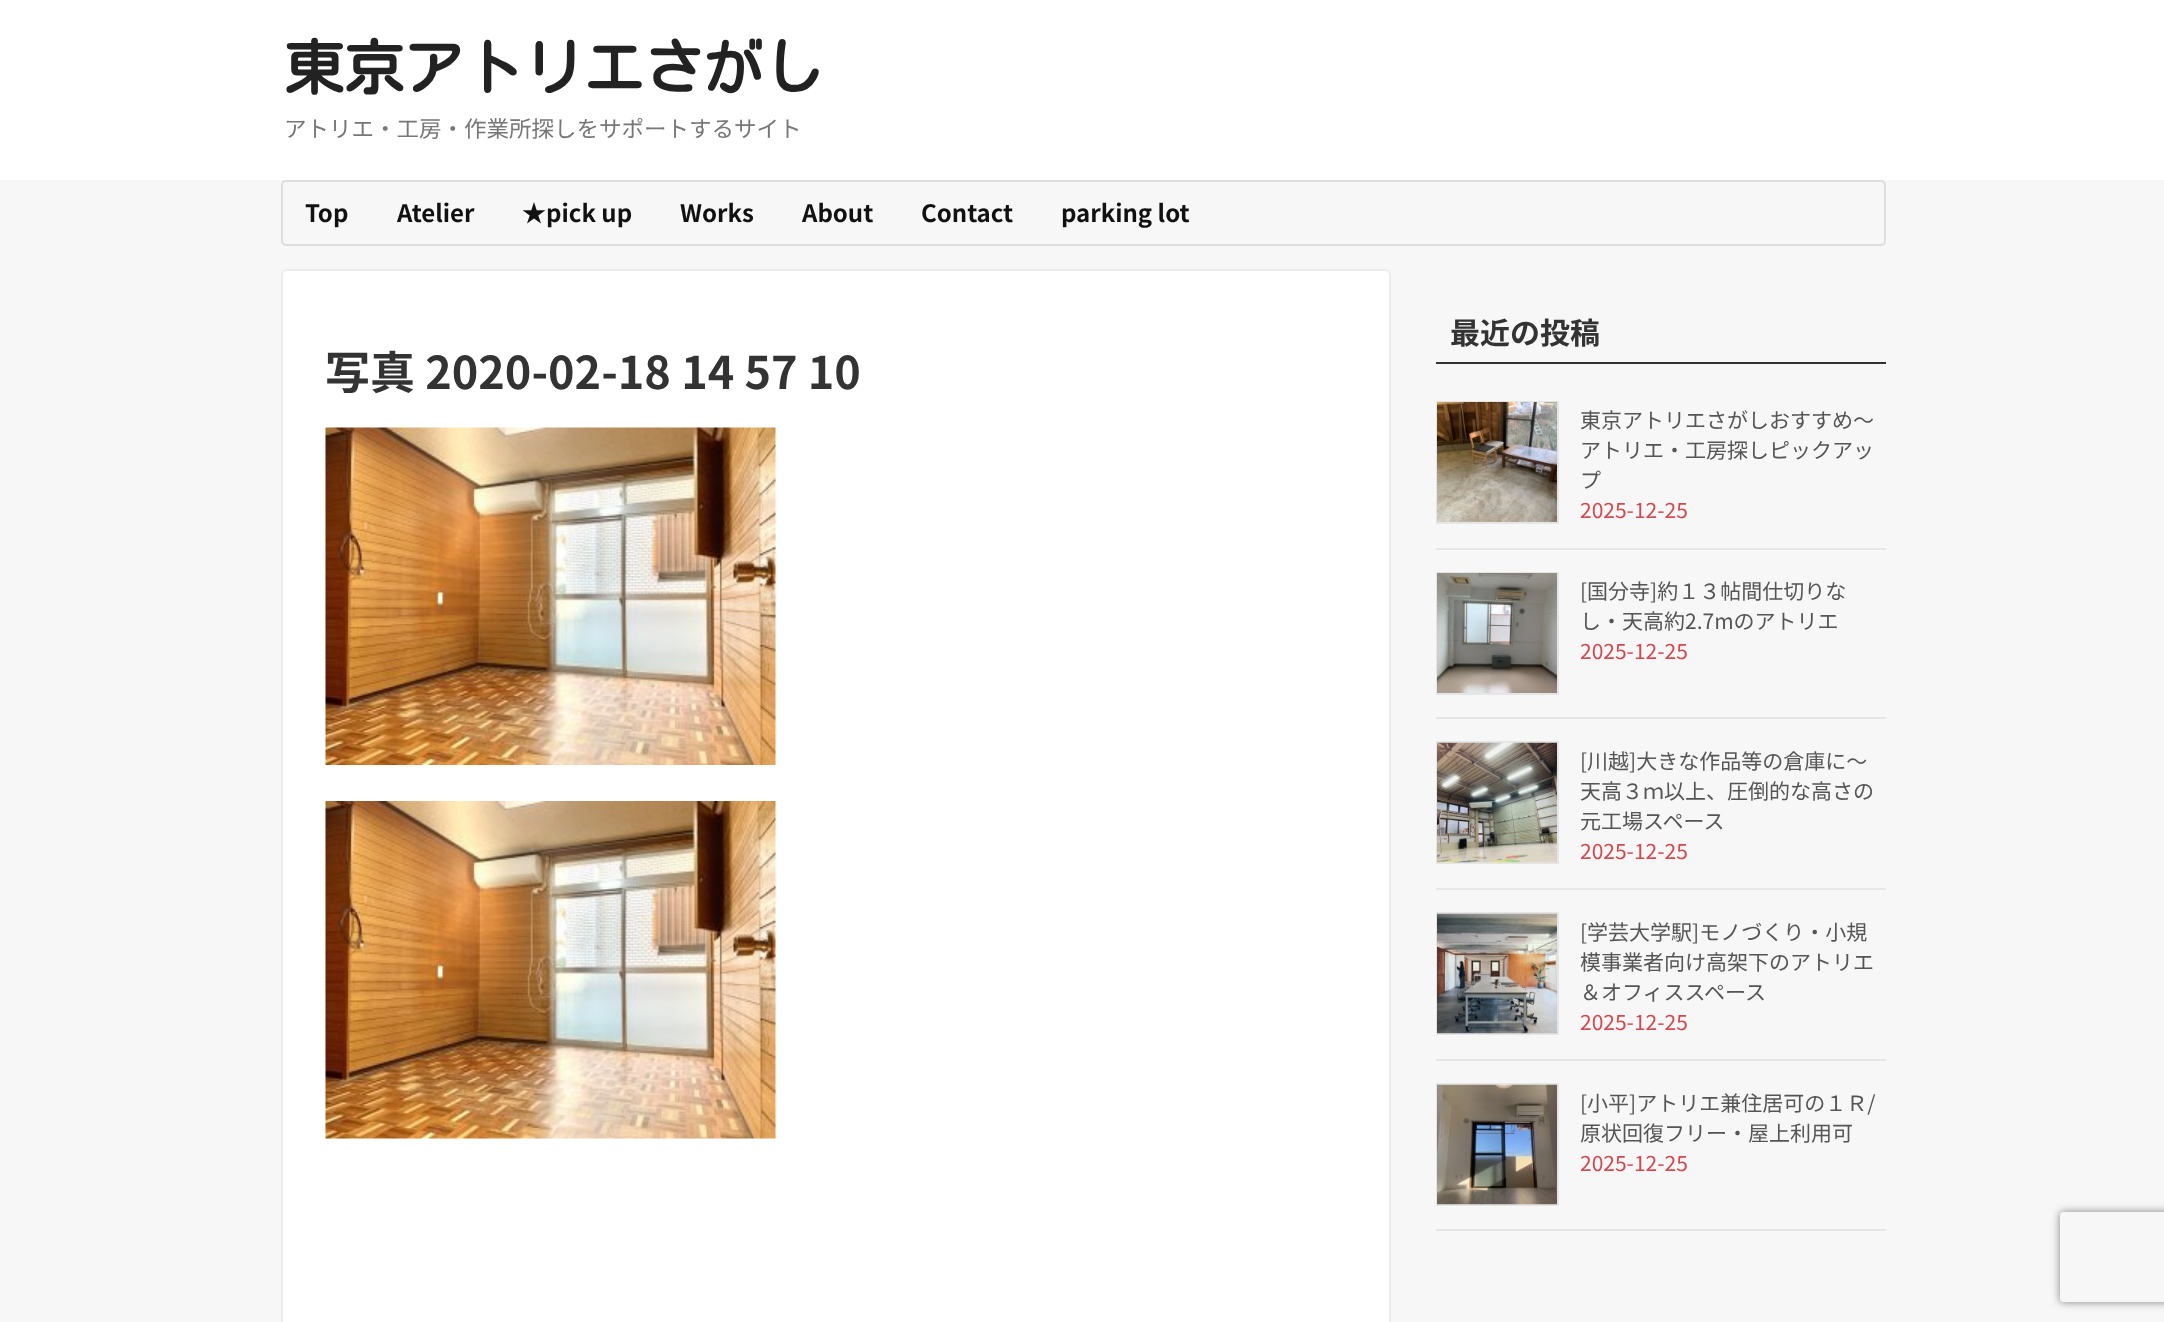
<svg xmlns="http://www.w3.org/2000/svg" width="2164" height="1322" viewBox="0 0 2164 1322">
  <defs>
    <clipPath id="clip1"><path d="M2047 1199H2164V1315H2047ZM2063 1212H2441C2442.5 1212 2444 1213.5 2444 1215V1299C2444 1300.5 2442.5 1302 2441 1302H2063C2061.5 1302 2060 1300.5 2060 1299V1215C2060 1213.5 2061.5 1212 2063 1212Z" clip-rule="evenodd"/></clipPath>
  </defs>
  <rect width="100%" height="100%" fill="#f7f7f7"/>
  <path d="M0 0h2164v180H0z" fill="#fff"/>
  <rect x="282" y="181" width="1603" height="64" rx="4" fill="none" stroke="#ddd" stroke-width="2"/>
  <rect x="282" y="270" width="1108" height="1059" rx="5" fill="#fff" stroke="#ececec" stroke-width="2"/>
  <image x="325" y="427" width="451" height="338" href="img/1.png"/>
  <image x="325" y="801" width="451" height="338" href="img/2.png"/>
  <path d="M1436 362h450v2H1436z" fill="#333"/>
  <path d="M1436 548h450v2H1436z" fill="#e6e6e6"/>
  <path d="M1437 402h121v121H1437z" fill="none" stroke="#e5e5e5" stroke-width="2"/>
  <image x="1437" y="402" width="120" height="120" href="img/3.png"/>
  <path d="M1436 717h450v2H1436z" fill="#e6e6e6"/>
  <path d="M1437 573h121v121H1437z" fill="none" stroke="#e5e5e5" stroke-width="2"/>
  <image x="1437" y="573" width="120" height="120" href="img/4.png"/>
  <path d="M1436 888h450v2H1436z" fill="#e6e6e6"/>
  <path d="M1437 742h121v121H1437z" fill="none" stroke="#e5e5e5" stroke-width="2"/>
  <image x="1437" y="742" width="120" height="121" href="img/5.png"/>
  <path d="M1436 1059h450v2H1436z" fill="#e6e6e6"/>
  <path d="M1437 913h121v121H1437z" fill="none" stroke="#e5e5e5" stroke-width="2"/>
  <image x="1437" y="913" width="120" height="121" href="img/6.png"/>
  <path d="M1436 1229h450v2H1436z" fill="#e6e6e6"/>
  <path d="M1437 1084h121v121H1437z" fill="none" stroke="#e5e5e5" stroke-width="2"/>
  <image x="1437" y="1084" width="120" height="121" href="img/7.png"/>
  <g clip-path="url(#clip1)">
    <rect x="2060" y="1212" width="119" height="90" rx="3" fill="#808080" filter="blur(4px)"/>
  </g>
  <text x="284" y="90" font-family="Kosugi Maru" font-size="60" font-weight="bold" fill="#222">東京アトリエさがし</text>
  <text x="284" y="137" font-family="Noto Sans JP" font-size="22.5" fill="#777">アトリエ・工房・作業所探しをサポートするサイト</text>
  <g font-family="Noto Sans JP" font-size="24" font-weight="bold" fill="#111">
    <text x="305" y="222">Top</text>
    <text x="397" y="222">Atelier</text>
    <text x="522" y="222">★pick up</text>
    <text x="680" y="222">Works</text>
    <text x="802" y="222">About</text>
    <text x="921" y="222">Contact</text>
    <text x="1061" y="222">parking lot</text>
  </g>
  <text x="325" y="389" font-family="Noto Sans JP" font-size="45" font-weight="bold" fill="#333">写真 2020-02-18 14 57 10</text>
  <text x="1450" y="344" font-family="Noto Sans JP" font-size="30" font-weight="bold" fill="#333">最近の投稿</text>
  <g font-family="Noto Sans JP" font-size="21" fill="#555">
    <text x="1580" y="428">東京アトリエさがしおすすめ～</text>
    <text x="1580" y="458">アトリエ・工房探しピックアッ</text>
    <text x="1580" y="488">プ</text>
  </g>
  <text x="1580" y="518" font-family="Noto Sans JP" font-size="21" fill="#d44950">2025-12-25</text>
  <g font-family="Noto Sans JP" font-size="21" fill="#555">
    <text x="1580" y="599">[国分寺]約１３帖間仕切りな</text>
    <text x="1580" y="629">し・天高約2.7mのアトリエ</text>
  </g>
  <text x="1580" y="659" font-family="Noto Sans JP" font-size="21" fill="#d44950">2025-12-25</text>
  <g font-family="Noto Sans JP" font-size="21" fill="#555">
    <text x="1580" y="769">[川越]大きな作品等の倉庫に～</text>
    <text x="1580" y="799">天高３ｍ以上、圧倒的な高さの</text>
    <text x="1580" y="829">元工場スペース</text>
  </g>
  <text x="1580" y="859" font-family="Noto Sans JP" font-size="21" fill="#d44950">2025-12-25</text>
  <g font-family="Noto Sans JP" font-size="21" fill="#555">
    <text x="1580" y="940">[学芸大学駅]モノづくり・小規</text>
    <text x="1580" y="970">模事業者向け高架下のアトリエ</text>
    <text x="1580" y="1000">＆オフィススペース</text>
  </g>
  <text x="1580" y="1030" font-family="Noto Sans JP" font-size="21" fill="#d44950">2025-12-25</text>
  <g font-family="Noto Sans JP" font-size="21" fill="#555">
    <text x="1580" y="1111">[小平]アトリエ兼住居可の１Ｒ/</text>
    <text x="1580" y="1141">原状回復フリー・屋上利用可</text>
  </g>
  <text x="1580" y="1171" font-family="Noto Sans JP" font-size="21" fill="#d44950">2025-12-25</text>
</svg>
